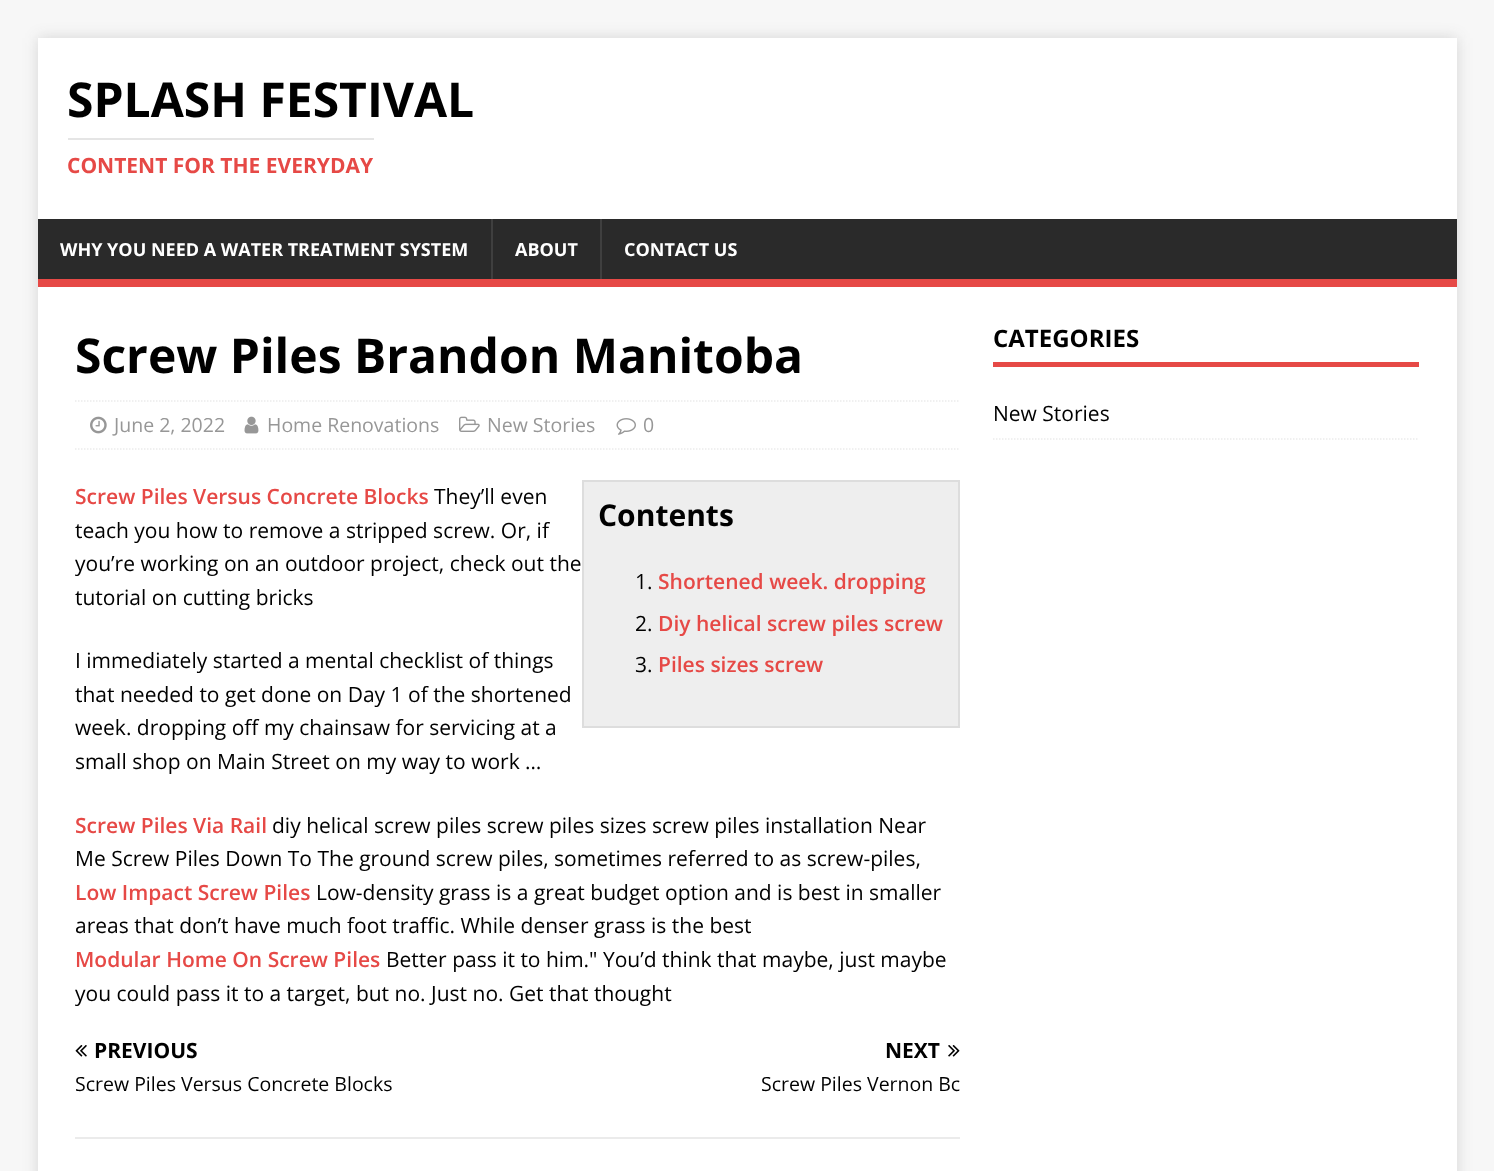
<svg xmlns="http://www.w3.org/2000/svg" width="1494" height="1171" viewBox="0 0 1494 1171">
  <rect width="100%" height="100%" fill="#f7f7f7"/>
  <path d="M38 38h1419v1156H38z" fill="#3232322b" filter="blur(7.5px)"/>
  <path d="M38 38h1419v181H38z" fill="#fff"/>
  <path d="M68 138h306v2H68z" fill="#e5e5e5"/>
  <path d="M38 219h1419v60H38z" fill="#2a2a2a"/>
  <path d="M38 279h1419v8H38z" fill="#e64946"/>
  <path d="M491 219h2v60H491z" fill="#3f3f3f"/>
  <path d="M600 219h2v60H600z" fill="#3f3f3f"/>
  <path d="M38 287h1419v884H38z" fill="#fff"/>
  <path d="M75 401H960" fill="none" stroke="#ebebeb" stroke-width="1.5" stroke-dasharray="1.5 1.5"/>
  <path d="M75 449H960" fill="none" stroke="#ebebeb" stroke-width="1.5" stroke-dasharray="1.5 1.5"/>
  <image x="90" y="416" width="17" height="18" href="img/1.png"/>
  <image x="244" y="416" width="15" height="18" href="img/2.png"/>
  <image x="459" y="416" width="21" height="16" href="img/3.png"/>
  <image x="616" y="418" width="20" height="17" href="img/4.png"/>
  <path d="M583 481h376v246H583z" fill="#eee" stroke="#ddd" stroke-width="2"/>
  <path d="M75 1137h885v2H75z" fill="#ebebeb"/>
  <image x="75" y="1045" width="12" height="12" href="img/5.png"/>
  <image x="948" y="1045" width="12" height="12" href="img/6.png"/>
  <path d="M993 362h426v5H993z" fill="#e64946"/>
  <path d="M993 439H1419" fill="none" stroke="#ebebeb" stroke-width="1.5" stroke-dasharray="1.5 1.5"/>
  <text x="67" y="117" font-family="Open Sans" font-size="48" font-weight="bold" fill="#000">SPLASH FESTIVAL</text>
  <text x="67" y="173" font-family="Open Sans" font-size="21" font-weight="bold" fill="#e64946">CONTENT FOR THE EVERYDAY</text>
  <g font-family="Open Sans" font-size="18" font-weight="bold" fill="#fff">
    <text x="60" y="256">WHY YOU NEED A WATER TREATMENT SYSTEM</text>
    <text x="515" y="256">ABOUT</text>
    <text x="624" y="256">CONTACT US</text>
  </g>
  <text x="75" y="373" font-family="Open Sans" font-size="48" font-weight="bold" fill="#000">Screw Piles Brandon Manitoba</text>
  <g font-family="Open Sans" font-size="19.5" fill="#979797">
    <text x="114" y="432">June 2, 2022</text>
    <text x="267" y="432">Home Renovations</text>
    <text x="487" y="432">New Stories</text>
    <text x="643" y="432">0</text>
  </g>
  <text x="75" y="504" font-family="Open Sans" font-size="21" font-weight="600" fill="#e64946">Screw Piles Versus Concrete Blocks</text>
  <g font-family="Open Sans" font-size="21" fill="#000">
    <text x="434" y="504">They’ll even</text>
    <text x="75" y="538">teach you how to remove a stripped screw. Or, if</text>
    <text x="75" y="571">you’re working on an outdoor project, check out the</text>
    <text x="75" y="605">tutorial on cutting bricks</text>
  </g>
  <text x="598" y="526" font-family="Open Sans" font-size="30" font-weight="bold" fill="#000">Contents</text>
  <text x="635" y="589" font-family="Open Sans" font-size="21" fill="#000">1.</text>
  <text x="658" y="589" font-family="Open Sans" font-size="21" font-weight="600" fill="#e64946">Shortened week. dropping</text>
  <text x="635" y="631" font-family="Open Sans" font-size="21" fill="#000">2.</text>
  <text x="658" y="631" font-family="Open Sans" font-size="21" font-weight="600" fill="#e64946">Diy helical screw piles screw</text>
  <text x="635" y="672" font-family="Open Sans" font-size="21" fill="#000">3.</text>
  <text x="658" y="672" font-family="Open Sans" font-size="21" font-weight="600" fill="#e64946">Piles sizes screw</text>
  <g font-family="Open Sans" font-size="21" fill="#000">
    <text x="75" y="668">I immediately started a mental checklist of things</text>
    <text x="75" y="702">that needed to get done on Day 1 of the shortened</text>
    <text x="75" y="735">week. dropping off my chainsaw for servicing at a</text>
    <text x="75" y="769">small shop on Main Street on my way to work …</text>
  </g>
  <text x="75" y="833" font-family="Open Sans" font-size="21" font-weight="600" fill="#e64946">Screw Piles Via Rail</text>
  <g font-family="Open Sans" font-size="21" fill="#000">
    <text x="272" y="833">diy helical screw piles screw piles sizes screw piles installation Near</text>
    <text x="75" y="866">Me Screw Piles Down To The ground screw piles, sometimes referred to as screw-piles,</text>
  </g>
  <text x="75" y="900" font-family="Open Sans" font-size="21" font-weight="600" fill="#e64946">Low Impact Screw Piles</text>
  <g font-family="Open Sans" font-size="21" fill="#000">
    <text x="316" y="900">Low-density grass is a great budget option and is best in smaller</text>
    <text x="75" y="933">areas that don’t have much foot traffic. While denser grass is the best</text>
  </g>
  <text x="75" y="967" font-family="Open Sans" font-size="21" font-weight="600" fill="#e64946">Modular Home On Screw Piles</text>
  <g font-family="Open Sans" font-size="21" fill="#000">
    <text x="386" y="967">Better pass it to him." You’d think that maybe, just maybe</text>
    <text x="75" y="1001">you could pass it to a target, but no. Just no. Get that thought</text>
  </g>
  <text x="94" y="1058" font-family="Open Sans" font-size="21" font-weight="bold" fill="#000">PREVIOUS</text>
  <text x="75" y="1091" font-family="Open Sans" font-size="19.5" fill="#000">Screw Piles Versus Concrete Blocks</text>
  <text x="885" y="1058" font-family="Open Sans" font-size="21" font-weight="bold" fill="#000">NEXT</text>
  <text x="761" y="1091" font-family="Open Sans" font-size="19.5" fill="#000">Screw Piles Vernon Bc</text>
  <text x="993" y="347" font-family="Open Sans" font-size="24" font-weight="bold" fill="#000">CATEGORIES</text>
  <text x="993" y="421" font-family="Open Sans" font-size="21" fill="#000">New Stories</text>
</svg>
